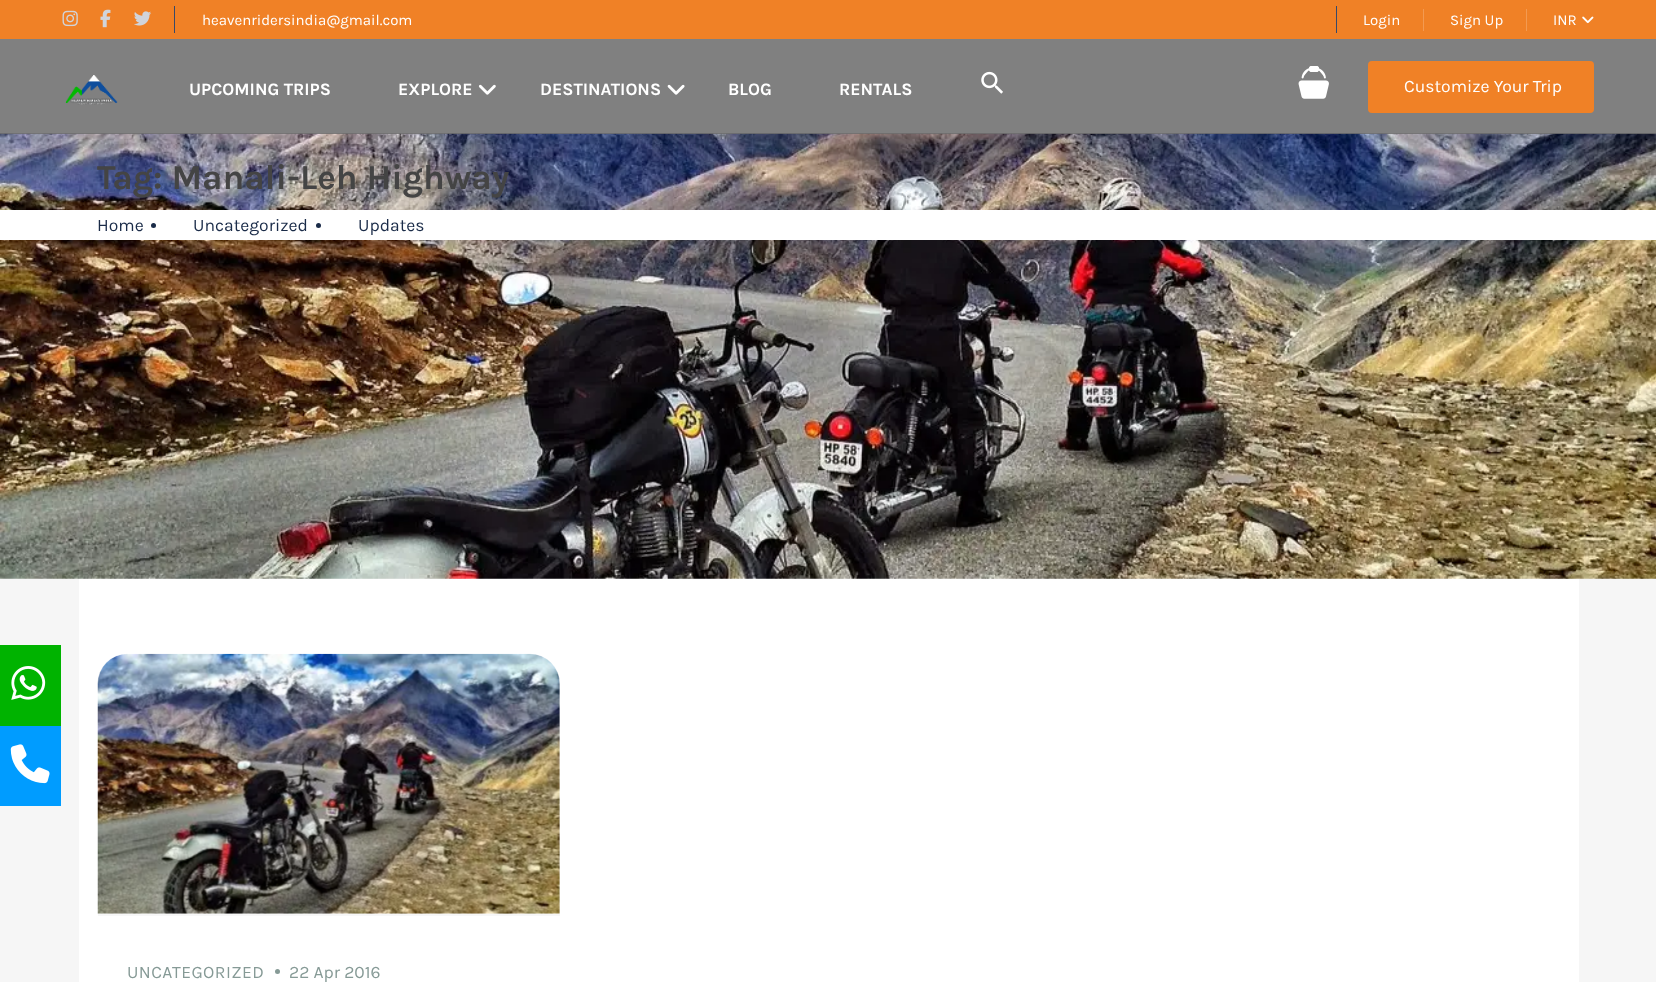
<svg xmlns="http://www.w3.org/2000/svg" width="1656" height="982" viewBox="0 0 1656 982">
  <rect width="100%" height="100%" fill="#f6f6f6"/>
  <path d="M0 0h1656v39H0z" fill="#f08126"/>
  <path d="M174 6h1v27H174z" fill="#374969"/>
  <image x="62" y="10" width="16" height="17" href="img/1.png"/>
  <image x="100" y="9" width="11" height="19" href="img/2.png"/>
  <image x="134" y="11" width="18" height="15" href="img/3.png"/>
  <path d="M1336 6h1v27H1336z" fill="#374969"/>
  <path d="M1423 9h1v22H1423z" fill="#f39a51"/>
  <path d="M1526 9h1v22H1526z" fill="#f39a51"/>
  <image x="1582" y="16" width="12" height="8" href="img/4.png"/>
  <image x="0" y="133" width="1656" height="446" href="img/12.png"/>
  <path d="M0 39h1656v95H0z" fill="#0000007a"/>
  <image x="65" y="75" width="53" height="30" href="img/5.png"/>
  <image x="478" y="84" width="18" height="11" href="img/6.png"/>
  <image x="667" y="84" width="18" height="11" href="img/7.png"/>
  <image x="981" y="71" width="22" height="23" href="img/8.png"/>
  <image x="1298" y="66" width="31" height="33" href="img/9.png"/>
  <rect x="1368" y="61" width="226" height="52" rx="4" fill="#f08126"/>
  <path d="M0 645h61v81H0z" fill="#00b300"/>
  <image x="11" y="666" width="35" height="34" href="img/10.png"/>
  <path d="M0 726h61v80H0z" fill="#009cff"/>
  <image x="10" y="744" width="40" height="40" href="img/11.png"/>
  <path d="M0 210h1656v30H0z" fill="#fff"/>
  <circle cx="153.5" cy="225.5" r="2.5" fill="#1a2b48"/>
  <circle cx="318.5" cy="225.5" r="2.5" fill="#1a2b48"/>
  <path d="M79 579h1500v403H79z" fill="#fff"/>
  <path d="M98 914h462v2H98z" fill="#f7f7f7"/>
  <image x="97" y="653" width="463" height="261" href="img/13.png"/>
  <circle cx="277.5" cy="971.5" r="2.5" fill="#869a96"/>
  <g font-family="Karla" font-size="15" fill="#fff">
    <text x="202" y="25">heavenridersindia@gmail.com</text>
    <text x="1363" y="25">Login</text>
    <text x="1450" y="25">Sign Up</text>
    <text x="1553" y="25">INR</text>
  </g>
  <g font-family="Karla" font-size="17.5" font-weight="bold" fill="#fff">
    <text x="189" y="95">UPCOMING TRIPS</text>
    <text x="398" y="95">EXPLORE</text>
    <text x="540" y="95">DESTINATIONS</text>
    <text x="728" y="95">BLOG</text>
    <text x="839" y="95">RENTALS</text>
  </g>
  <text x="1404" y="92" font-family="Karla" font-size="17.5" fill="#fff">Customize Your Trip</text>
  <text x="97" y="189" font-family="Karla" font-size="35" font-weight="bold" fill="#444">Tag: Manali-Leh Highway</text>
  <g font-family="Karla" font-size="17.5" fill="#1a2b48">
    <text x="97" y="231">Home</text>
    <text x="193" y="231">Uncategorized</text>
    <text x="358" y="231">Updates</text>
  </g>
  <text x="127" y="978" font-family="Karla" font-size="17.5" letter-spacing="0.4" fill="#869a96">UNCATEGORIZED</text>
  <text x="289" y="978" font-family="Karla" font-size="17.5" fill="#869a96">22 Apr 2016</text>
</svg>
